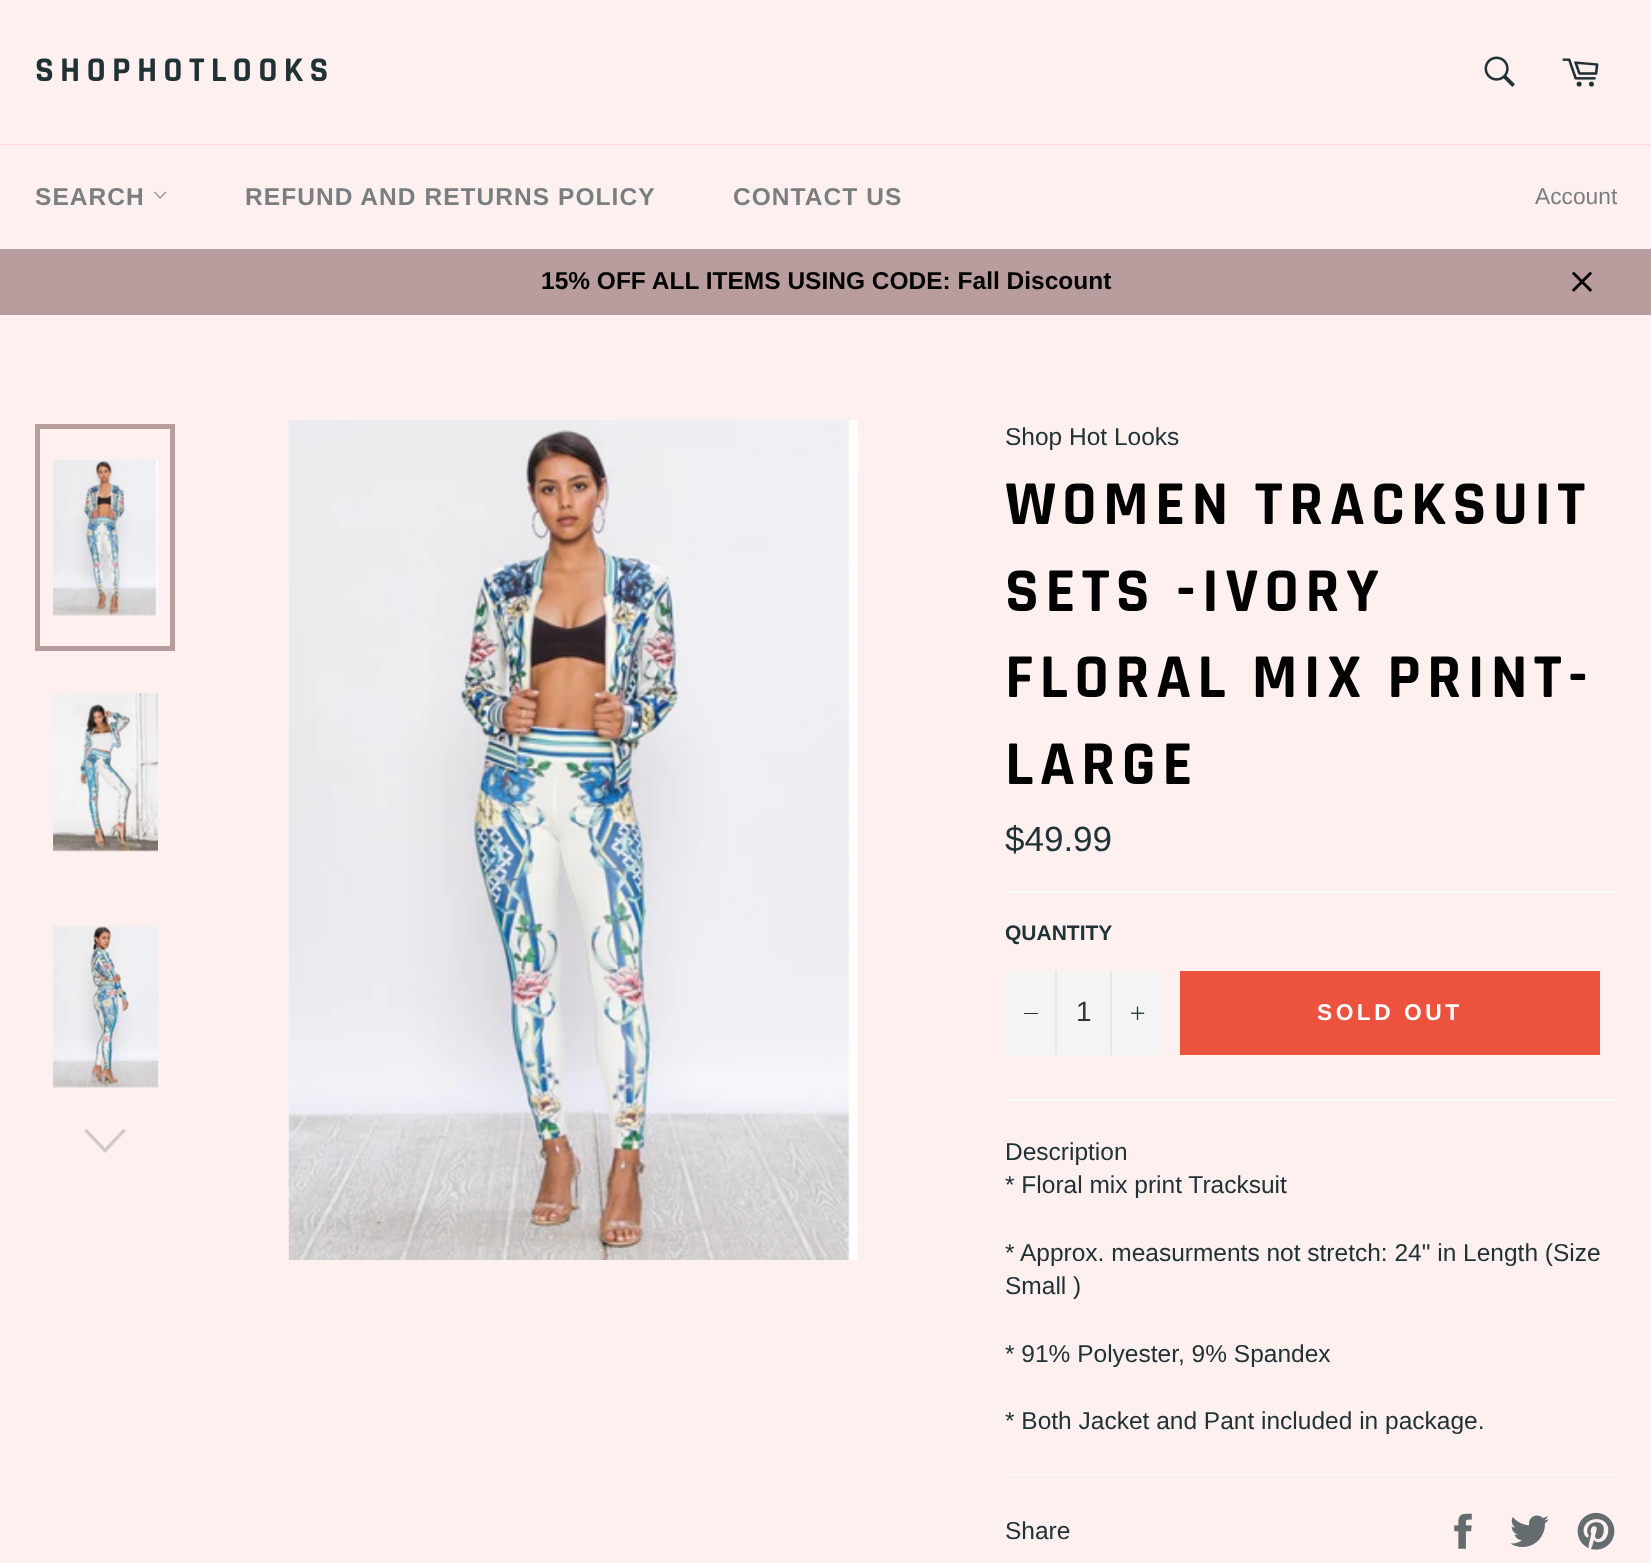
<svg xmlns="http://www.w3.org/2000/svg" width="1651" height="1563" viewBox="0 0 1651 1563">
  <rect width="100%" height="100%" fill="#fff0f0"/>
  <image x="1484" y="56" width="31" height="31" href="img/1.png"/>
  <image x="1562" y="58" width="37" height="29" href="img/2.png"/>
  <path d="M0 144h1651v1H0z" fill="#ffd7d7"/>
  <image x="154" y="191" width="13" height="8" href="img/3.png"/>
  <path d="M0 249h1651v66H0z" fill="#b99c9c"/>
  <image x="1571" y="271" width="22" height="21" href="img/4.png"/>
  <image x="53" y="459" width="105" height="157" href="img/5.png"/>
  <path d="M37.5 426.5h135v222H37.5z" fill="none" stroke="#b99c9c" stroke-width="5"/>
  <image x="53" y="692" width="105" height="160" href="img/6.png"/>
  <image x="53" y="925" width="105" height="163" href="img/7.png"/>
  <path d="M123 1129L126 1131L105 1153L84 1131L87 1129L105 1148Z" fill="#d3cacb"/>
  <image x="288" y="420" width="570" height="840" href="img/8.png"/>
  <path d="M1005 891h612v2H1005z" fill="#fafafa"/>
  <path d="M1005 971h157v84H1005z" fill="#f4f4f4"/>
  <path d="M1055 971h2v84H1055z" fill="#e7e7e7"/>
  <path d="M1024 1013h14v1H1024z" fill="#213236"/>
  <path d="M1110 971h2v84H1110z" fill="#e7e7e7"/>
  <image x="1131" y="1006" width="14" height="14" href="img/9.png"/>
  <path d="M1180 971h420v84H1180z" fill="#ec523e"/>
  <path d="M1005 1099h612v2H1005z" fill="#fafafa"/>
  <path d="M1005 1474h612v2H1005z" fill="#fafafa"/>
  <image x="1454" y="1513" width="18" height="36" href="img/10.png"/>
  <image x="1510" y="1515" width="39" height="32" href="img/11.png"/>
  <image x="1577" y="1512" width="38" height="38" href="img/12.png"/>
  <text x="35" y="81" font-family="Rajdhani" font-size="35" font-weight="bold" letter-spacing="6.25" fill="#213236">SHOPHOTLOOKS</text>
  <g font-family="Liberation Sans" font-size="24.5" font-weight="bold" letter-spacing="1.05" fill="#7a7e80">
    <text x="35" y="205">SEARCH</text>
    <text x="245" y="205">REFUND AND RETURNS POLICY</text>
    <text x="733" y="205">CONTACT US</text>
  </g>
  <text x="1535" y="204" font-family="Liberation Sans" font-size="22.75" fill="#7a7e80">Account</text>
  <text x="541" y="289" font-family="Liberation Sans" font-size="24.5" font-weight="bold" fill="#000">15% OFF ALL ITEMS USING CODE: Fall Discount</text>
  <text x="1005" y="445" font-family="Liberation Sans" font-size="24.5" fill="#213236">Shop Hot Looks</text>
  <g font-family="Rajdhani" font-size="63" font-weight="bold" letter-spacing="6.25" fill="#000">
    <text x="1005" y="524">WOMEN TRACKSUIT</text>
    <text x="1005" y="611">SETS -IVORY</text>
    <text x="1005" y="697">FLORAL MIX PRINT-</text>
    <text x="1005" y="784">LARGE</text>
  </g>
  <text x="1005" y="851" font-family="Liberation Sans" font-size="35" fill="#213236">$49.99</text>
  <text x="1005" y="940" font-family="Liberation Sans" font-size="21" font-weight="bold" fill="#213236">QUANTITY</text>
  <text x="1076" y="1021" font-family="Liberation Sans" font-size="28" fill="#333">1</text>
  <text x="1317" y="1020" font-family="Liberation Sans" font-size="22.75" font-weight="bold" letter-spacing="3.5" fill="#fff">SOLD OUT</text>
  <g font-family="Liberation Sans" font-size="24.5" fill="#213236">
    <text x="1005" y="1160">Description</text>
    <text x="1005" y="1193">* Floral mix print Tracksuit</text>
    <text x="1005" y="1261">* Approx. measurments not stretch: 24" in Length (Size</text>
    <text x="1005" y="1294">Small )</text>
    <text x="1005" y="1362">* 91% Polyester, 9% Spandex</text>
    <text x="1005" y="1429">* Both Jacket and Pant included in package.</text>
    <text x="1005" y="1539">Share</text>
  </g>
</svg>
